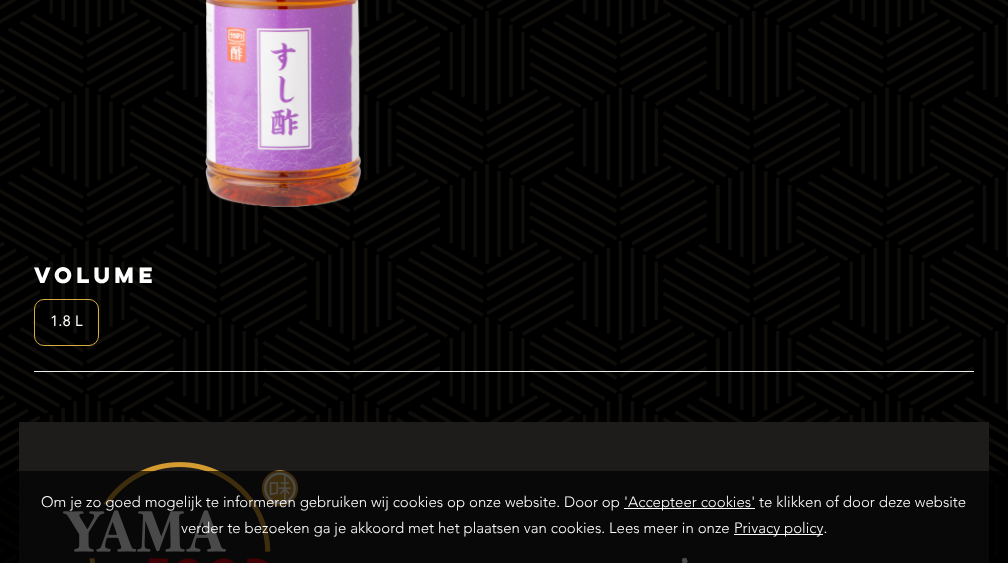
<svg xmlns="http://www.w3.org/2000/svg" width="1008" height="563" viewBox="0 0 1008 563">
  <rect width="100%" height="100%" fill="#fff"/>
  <image x="0" y="0" width="1008" height="563" href="img/1.png"/>
  <image x="205" y="0" width="156" height="207" href="img/2.png"/>
  <rect x="34.5" y="299.5" width="64" height="46" rx="9.5" fill="none" stroke="#d7ad44"/>
  <path d="M34 371h940v1H34z" fill="#eee"/>
  <path d="M19 422h970v141H19z" fill="#1d1c1b"/>
  <image x="63" y="462" width="235" height="101" href="img/3.png"/>
  <image x="682" y="557" width="6" height="6" href="img/4.png"/>
  <path d="M0 471h1008v92H0z" fill="#000000b3"/>
  <path d="M624 508h131v1H624z" fill="#fff"/>
  <path d="M734 534h89v1H734z" fill="#fff"/>
  <text x="34" y="283" font-family="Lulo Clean" font-size="20" font-weight="bold" fill="#fff">Volume</text>
  <text x="50" y="326" font-family="Avenir" font-size="15" fill="#fff">1.8 L</text>
  <g font-family="Avenir" font-size="15" font-weight="300" fill="#fff">
    <text x="41" y="507">Om je zo goed mogelijk te informeren gebruiken wij cookies op onze website. Door op</text>
    <text x="624" y="507">'Accepteer cookies' te klikken of door deze website</text>
    <text x="181" y="533">verder te bezoeken ga je akkoord met het plaatsen van cookies. Lees meer in onze</text>
    <text x="734" y="533">Privacy policy.</text>
  </g>
</svg>
